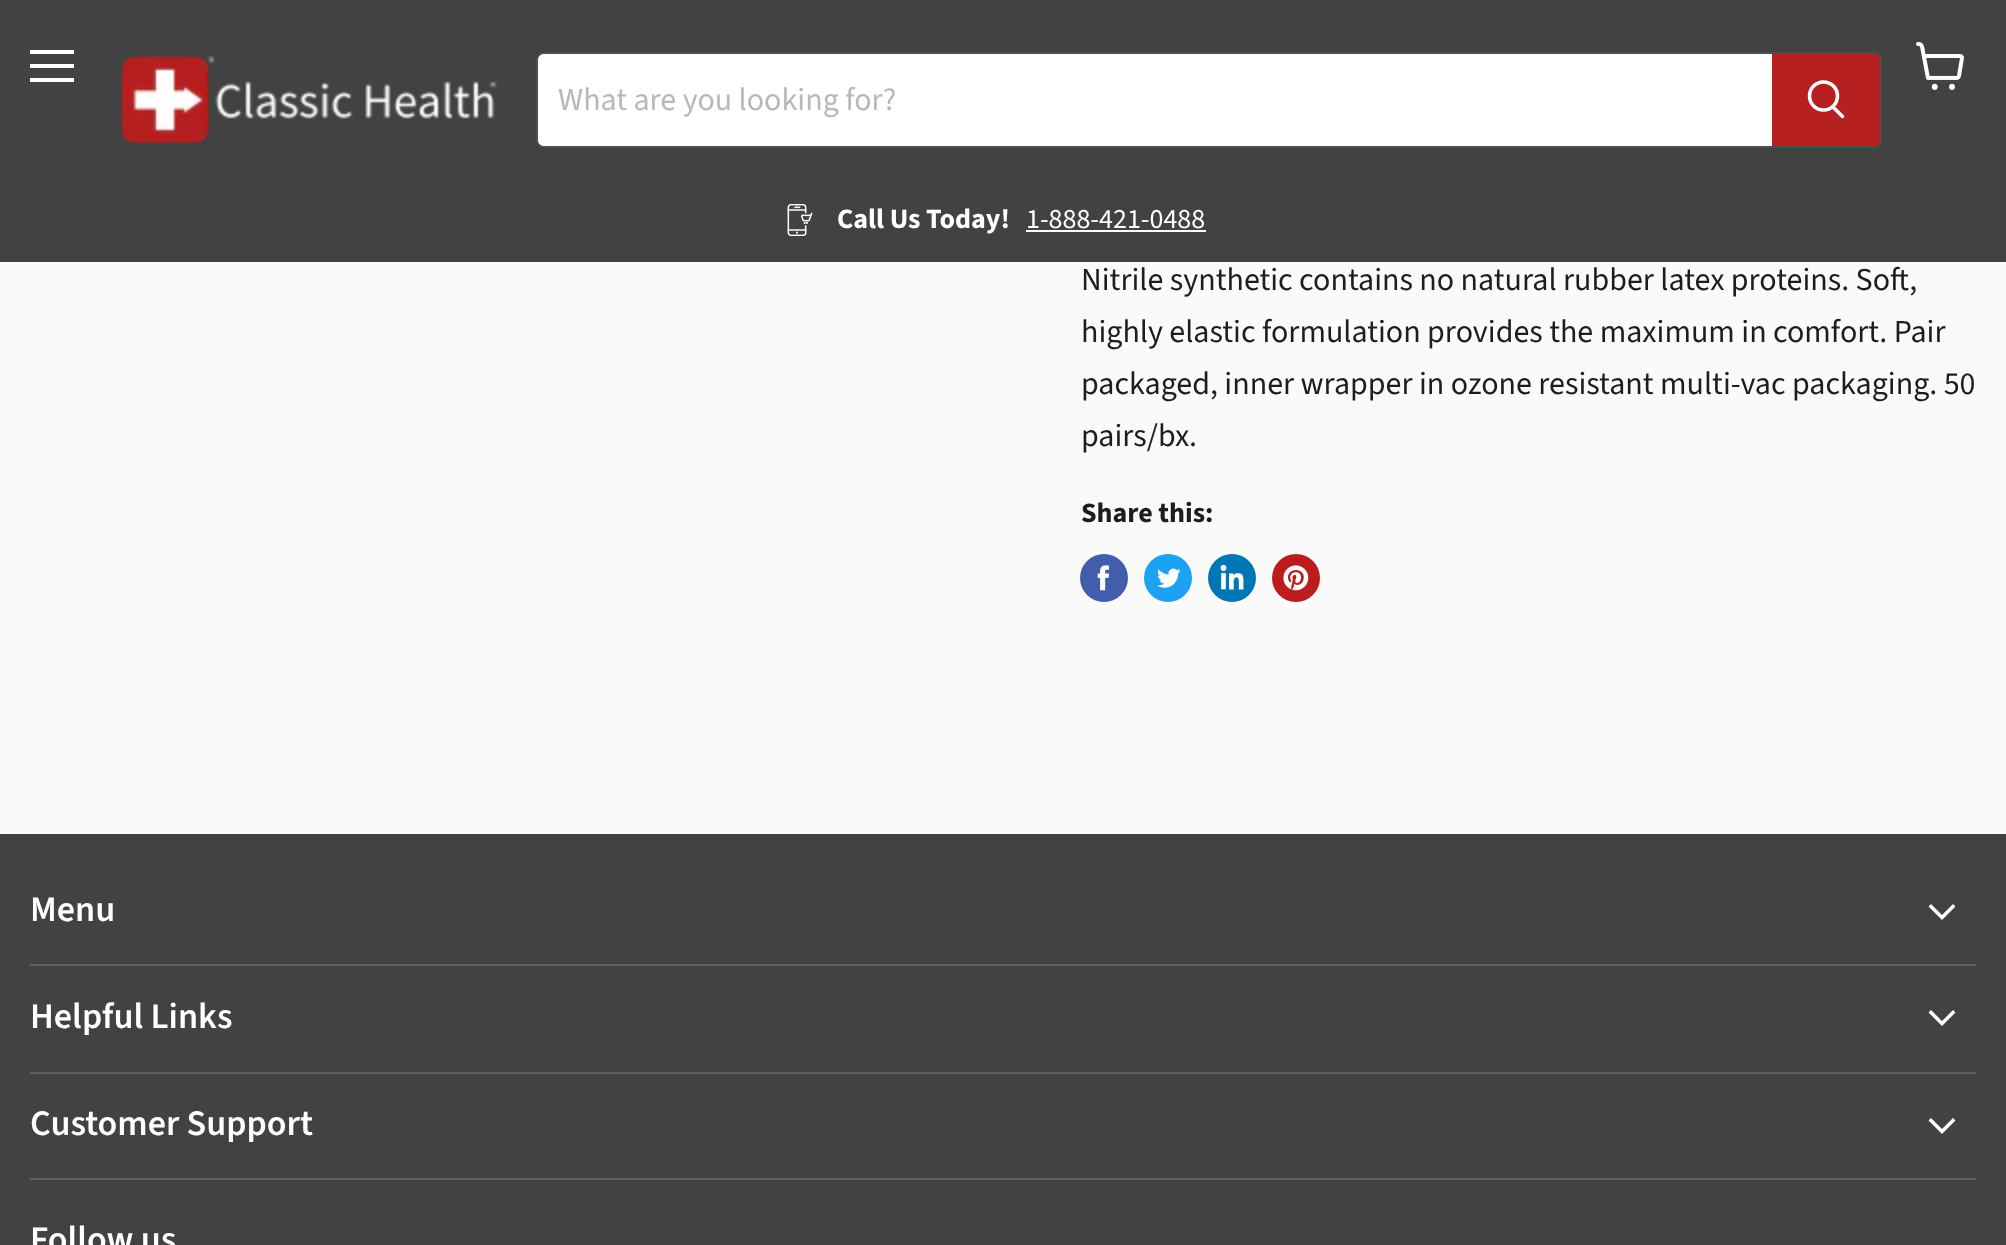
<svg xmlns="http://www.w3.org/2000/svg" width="2006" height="1245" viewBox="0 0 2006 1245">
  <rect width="100%" height="100%" fill="#fafafa"/>
  <path d="M0 0h2006v262H0z" fill="#424242"/>
  <path d="M30 50h44v4H30z" fill="#fff"/>
  <path d="M30 64h44v4H30z" fill="#fff"/>
  <path d="M30 78h44v4H30z" fill="#fff"/>
  <image x="1916" y="42" width="48" height="48" href="img/1.png"/>
  <image x="121" y="55" width="377" height="90" href="img/2.png"/>
  <rect x="537" y="53" width="1344" height="94" rx="7" fill="none" stroke="#4e4e4e" stroke-width="2"/>
  <path d="M544 54H1772V146H544C540.5 146 538 143.5 538 140V60C538 56.5 540.5 54 544 54Z" fill="#fff"/>
  <path d="M1773 55H1874C1877 55 1879 57 1879 60V140C1879 143 1877 145 1874 145H1773Z" fill="#b62020" stroke="#b62020" stroke-width="2"/>
  <path d="M1842.5 116.5L1833 107" fill="none" stroke="#fff" stroke-width="3.5" stroke-linecap="round"/>
  <circle cx="1823.5" cy="96" r="14" fill="none" stroke="#fff" stroke-width="3.5"/>
  <image x="787" y="204" width="26" height="32" href="img/3.png"/>
  <path d="M1026 230h180v2H1026z" fill="#fff"/>
  <circle cx="1104" cy="578" r="24" fill="#425dab"/>
  <image x="1097" y="565" width="12" height="26" href="img/4.png"/>
  <circle cx="1168" cy="578" r="24" fill="#1da1f2"/>
  <image x="1157" y="568" width="24" height="20" href="img/5.png"/>
  <circle cx="1232" cy="578" r="24" fill="#0077b5"/>
  <image x="1220" y="564" width="24" height="26" href="img/6.png"/>
  <circle cx="1296" cy="578" r="24" fill="#bd1c1c"/>
  <image x="1283" y="565" width="26" height="26" href="img/7.png"/>
  <path d="M0 834h2006v411H0z" fill="#424242"/>
  <path d="M30 964h1946v2H30z" fill="#5e5e5e"/>
  <path d="M1942 917.5L1953 906.5M1942 917.5L1931 906.5" fill="none" stroke="#fff" stroke-width="3.5" stroke-linecap="square"/>
  <path d="M30 1072h1946v2H30z" fill="#5e5e5e"/>
  <path d="M1942 1023.5L1953 1012.5M1942 1023.5L1931 1012.5" fill="none" stroke="#fff" stroke-width="3.5" stroke-linecap="square"/>
  <path d="M30 1178h1946v2H30z" fill="#5e5e5e"/>
  <path d="M1942 1131.5L1953 1120.5M1942 1131.5L1931 1120.5" fill="none" stroke="#fff" stroke-width="3.5" stroke-linecap="square"/>
  <text x="558" y="110" font-family="Source Sans Pro" font-size="32" fill="#b8b8b8">What are you looking for?</text>
  <text x="837" y="228" font-family="Source Sans Pro" font-size="28" font-weight="bold" fill="#fff">Call Us Today!</text>
  <text x="1026" y="228" font-family="Source Sans Pro" font-size="28" fill="#fff">1-888-421-0488</text>
  <g font-family="Source Sans Pro" font-size="32" fill="#1d1d1d">
    <text x="1081" y="290">Nitrile synthetic contains no natural rubber latex proteins. Soft,</text>
    <text x="1081" y="342">highly elastic formulation provides the maximum in comfort. Pair</text>
    <text x="1081" y="394">packaged, inner wrapper in ozone resistant multi-vac packaging. 50</text>
    <text x="1081" y="446">pairs/bx.</text>
  </g>
  <text x="1081" y="522" font-family="Source Sans Pro" font-size="28" font-weight="bold" fill="#1d1d1d">Share this:</text>
  <g font-family="Source Sans Pro" font-size="36" font-weight="600" fill="#fff">
    <text x="30" y="921">Menu</text>
    <text x="30" y="1028">Helpful Links</text>
    <text x="30" y="1135">Customer Support</text>
    <text x="30" y="1251">Follow us</text>
  </g>
</svg>
